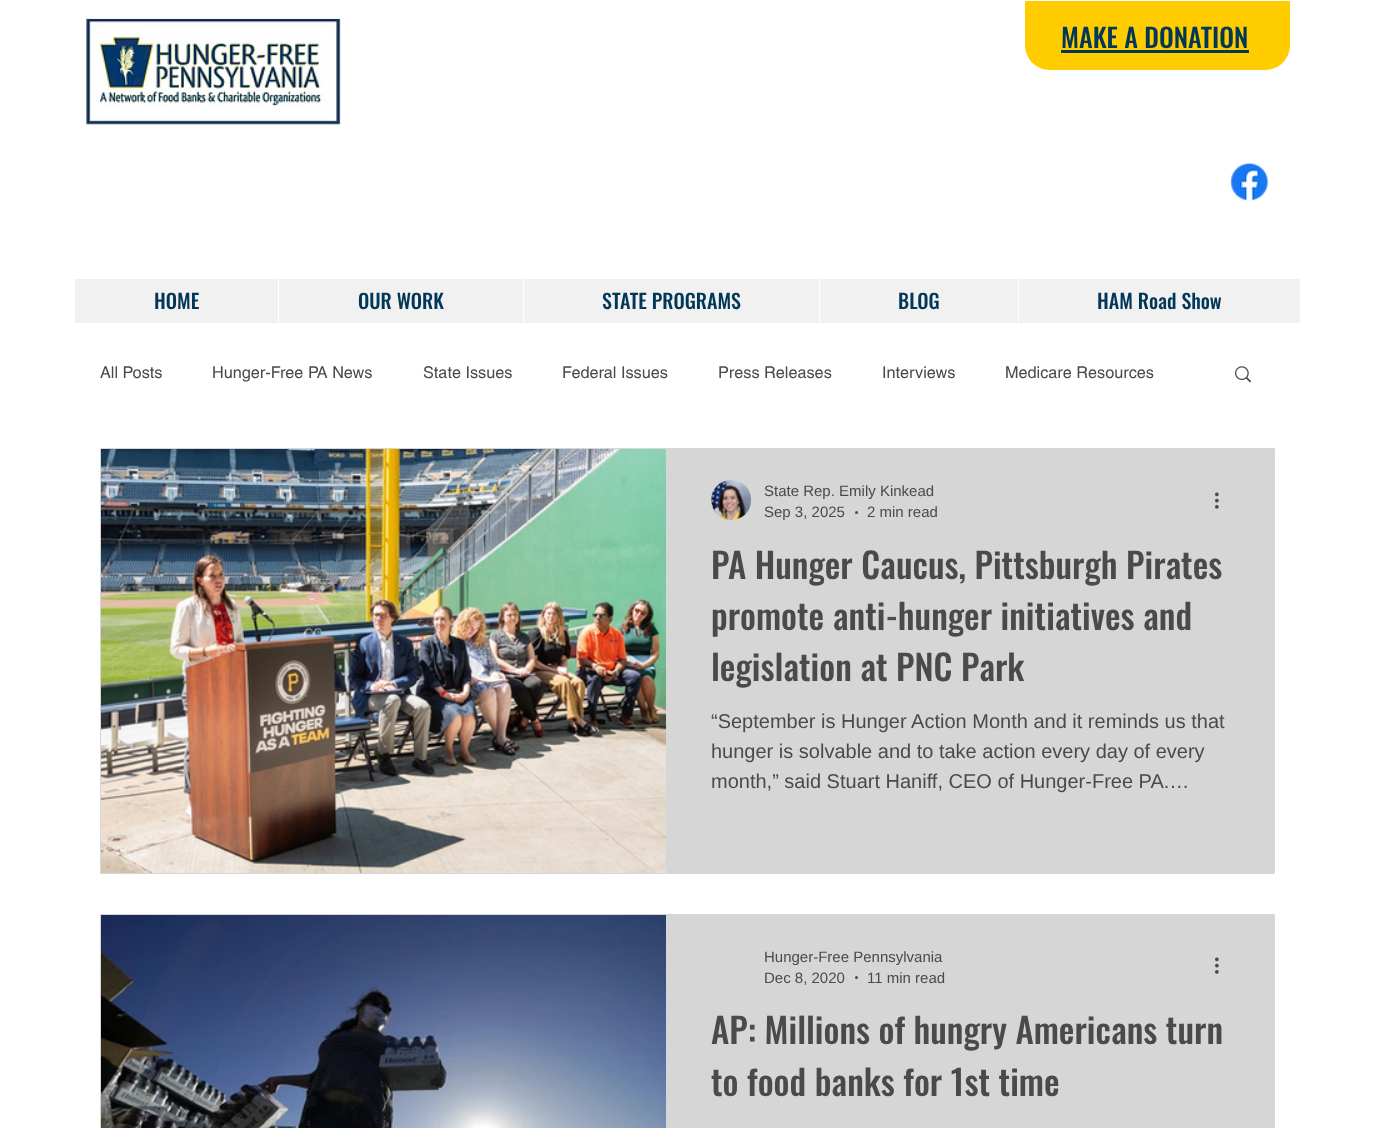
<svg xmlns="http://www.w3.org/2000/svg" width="1374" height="1128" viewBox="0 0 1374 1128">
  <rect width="100%" height="100%" fill="#fff"/>
  <image x="86" y="18" width="255" height="107" href="img/1.png"/>
  <path d="M1025 1H1290V45C1290 59 1279 70 1265 70H1050C1036 70 1025 59 1025 45Z" fill="#fc0"/>
  <path d="M1061 50h188v3H1061z" fill="#023758"/>
  <image x="1230" y="162" width="39" height="39" href="img/2.png"/>
  <path d="M75 279h1225v44H75z" fill="#f1f1f1"/>
  <path d="M278 279h1v44H278z" fill="#fff"/>
  <path d="M523 279h1v44H523z" fill="#fff"/>
  <path d="M819 279h1v44H819z" fill="#fff"/>
  <path d="M1018 279h1v44H1018z" fill="#fff"/>
  <image x="1235" y="366" width="17" height="17" href="img/3.png"/>
  <path d="M100.5 448.5h1174v425H100.5z" fill="none" stroke="#d6d6d6"/>
  <image x="101" y="449" width="565" height="424" href="img/4.png"/>
  <path d="M666 449h608v424H666z" fill="#d6d6d6"/>
  <image x="711" y="480" width="41" height="40" href="img/5.png"/>
  <circle cx="856.5" cy="512.5" r="1.5" fill="#4a4a4a"/>
  <image x="1215" y="492" width="4" height="17" href="img/6.png"/>
  <path d="M100.5 914.5h1174v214H100.5z" fill="none" stroke="#d6d6d6"/>
  <image x="101" y="915" width="565" height="213" href="img/7.png"/>
  <path d="M666 915h608v213H666z" fill="#d6d6d6"/>
  <circle cx="856.5" cy="977.5" r="1.5" fill="#4a4a4a"/>
  <image x="1215" y="957" width="4" height="17" href="img/6.png"/>
  <text x="1061" y="48" font-family="Oswald" font-size="26.25" font-weight="500" fill="#023758">MAKE A DONATION</text>
  <g font-family="Oswald" font-size="20" font-weight="500" fill="#023758">
    <text x="154" y="309">HOME</text>
    <text x="358" y="309">OUR WORK</text>
    <text x="602" y="309">STATE PROGRAMS</text>
    <text x="898" y="309">BLOG</text>
    <text x="1097" y="309">HAM Road Show</text>
  </g>
  <g font-family="helvetica" font-size="16.25" fill="#4a4a4a">
    <text x="100" y="378">All Posts</text>
    <text x="212" y="378">Hunger-Free PA News</text>
    <text x="423" y="378">State Issues</text>
    <text x="562" y="378">Federal Issues</text>
    <text x="718" y="378">Press Releases</text>
    <text x="882" y="378">Interviews</text>
    <text x="1005" y="378">Medicare Resources</text>
  </g>
  <g font-family="Liberation Sans" font-size="15" fill="#4a4a4a">
    <text x="764" y="496">State Rep. Emily Kinkead</text>
    <text x="764" y="517">Sep 3, 2025</text>
    <text x="867" y="517">2 min read</text>
  </g>
  <g font-family="Oswald" font-size="35" font-weight="500" fill="#4a4a4a">
    <text x="711" y="579">PA Hunger Caucus, Pittsburgh Pirates</text>
    <text x="711" y="630">promote anti-hunger initiatives and</text>
    <text x="711" y="681">legislation at PNC Park</text>
  </g>
  <g font-family="Liberation Sans" font-size="20" fill="#4a4a4a">
    <text x="711" y="728">“September is Hunger Action Month and it reminds us that</text>
    <text x="711" y="758">hunger is solvable and to take action every day of every</text>
    <text x="711" y="788">month,” said Stuart Haniff, CEO of Hunger-Free PA.…</text>
  </g>
  <g font-family="Liberation Sans" font-size="15" fill="#4a4a4a">
    <text x="764" y="962">Hunger-Free Pennsylvania</text>
    <text x="764" y="983">Dec 8, 2020</text>
    <text x="867" y="983">11 min read</text>
  </g>
  <g font-family="Oswald" font-size="35" font-weight="500" fill="#4a4a4a">
    <text x="711" y="1044">AP: Millions of hungry Americans turn</text>
    <text x="711" y="1096">to food banks for 1st time</text>
  </g>
</svg>
